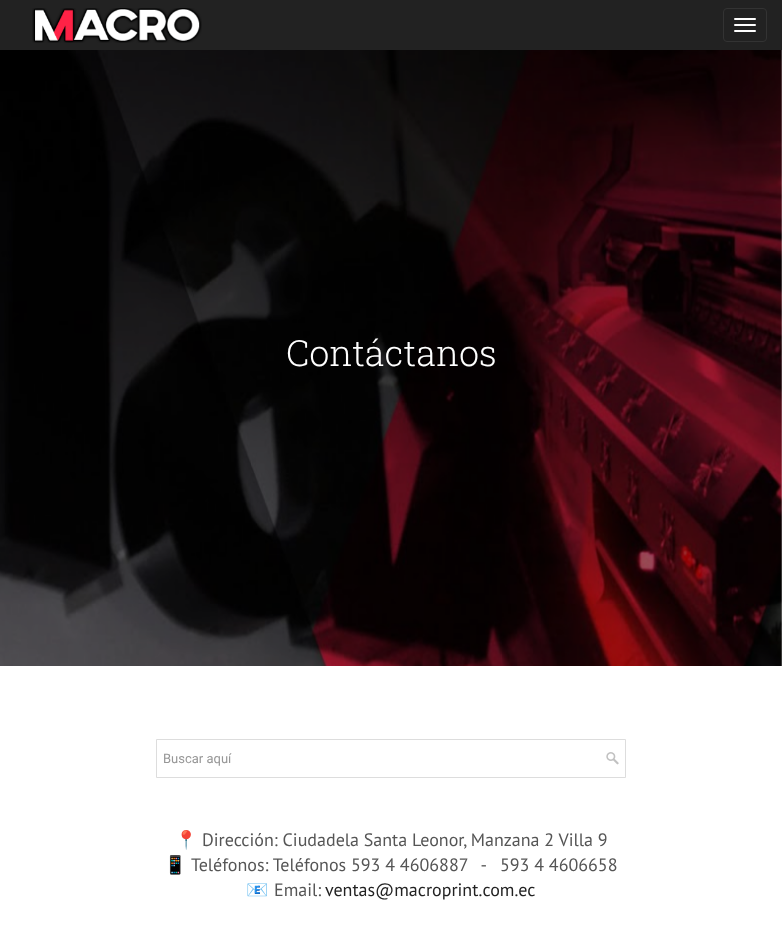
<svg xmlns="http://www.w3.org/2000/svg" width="782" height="951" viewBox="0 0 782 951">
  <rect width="100%" height="100%" fill="#fff"/>
  <path d="M0 0h782v50H0z" fill="#222"/>
  <image x="32" y="8" width="170" height="35" href="img/1.png"/>
  <rect x="723.5" y="8.5" width="43" height="33" rx="3.5" fill="none" stroke="#333"/>
  <rect x="734" y="18" width="22" height="2" rx="1" fill="#fff"/>
  <rect x="734" y="24" width="22" height="2" rx="1" fill="#fff"/>
  <rect x="734" y="30" width="22" height="2" rx="1" fill="#fff"/>
  <image x="0" y="50" width="782" height="616" href="img/2.png"/>
  <image x="606" y="752" width="13" height="13" href="img/3.png"/>
  <path d="M156.5 739.5h469v38H156.5z" fill="none" stroke="#ddd"/>
  <text x="286" y="366" font-family="Roboto Slab" font-size="36" font-weight="300" fill="#fff">Contáctanos</text>
  <text x="163" y="763" font-family="Roboto" font-size="13" fill="#979797">Buscar aquí</text>
  <text x="175" y="846" font-family="Noto Color Emoji" font-size="18" fill="#555">📍</text>
  <text x="202" y="846" font-family="PT Sans" font-size="18" fill="#555">Dirección: Ciudadela Santa Leonor, Manzana 2 Villa 9</text>
  <text x="164" y="871" font-family="Noto Color Emoji" font-size="18" fill="#555">📱</text>
  <text x="191" y="871" font-family="PT Sans" font-size="18" fill="#555" xml:space="preserve">Teléfonos: Teléfonos 593 4 4606887   -   593 4 4606658</text>
  <text x="246" y="896" font-family="Noto Color Emoji" font-size="18" fill="#555">📧</text>
  <text x="274" y="896" font-family="PT Sans" font-size="18" fill="#555">Email:</text>
  <text x="325" y="896" font-family="PT Sans" font-size="18" fill="#222">ventas@macroprint.com.ec</text>
</svg>
